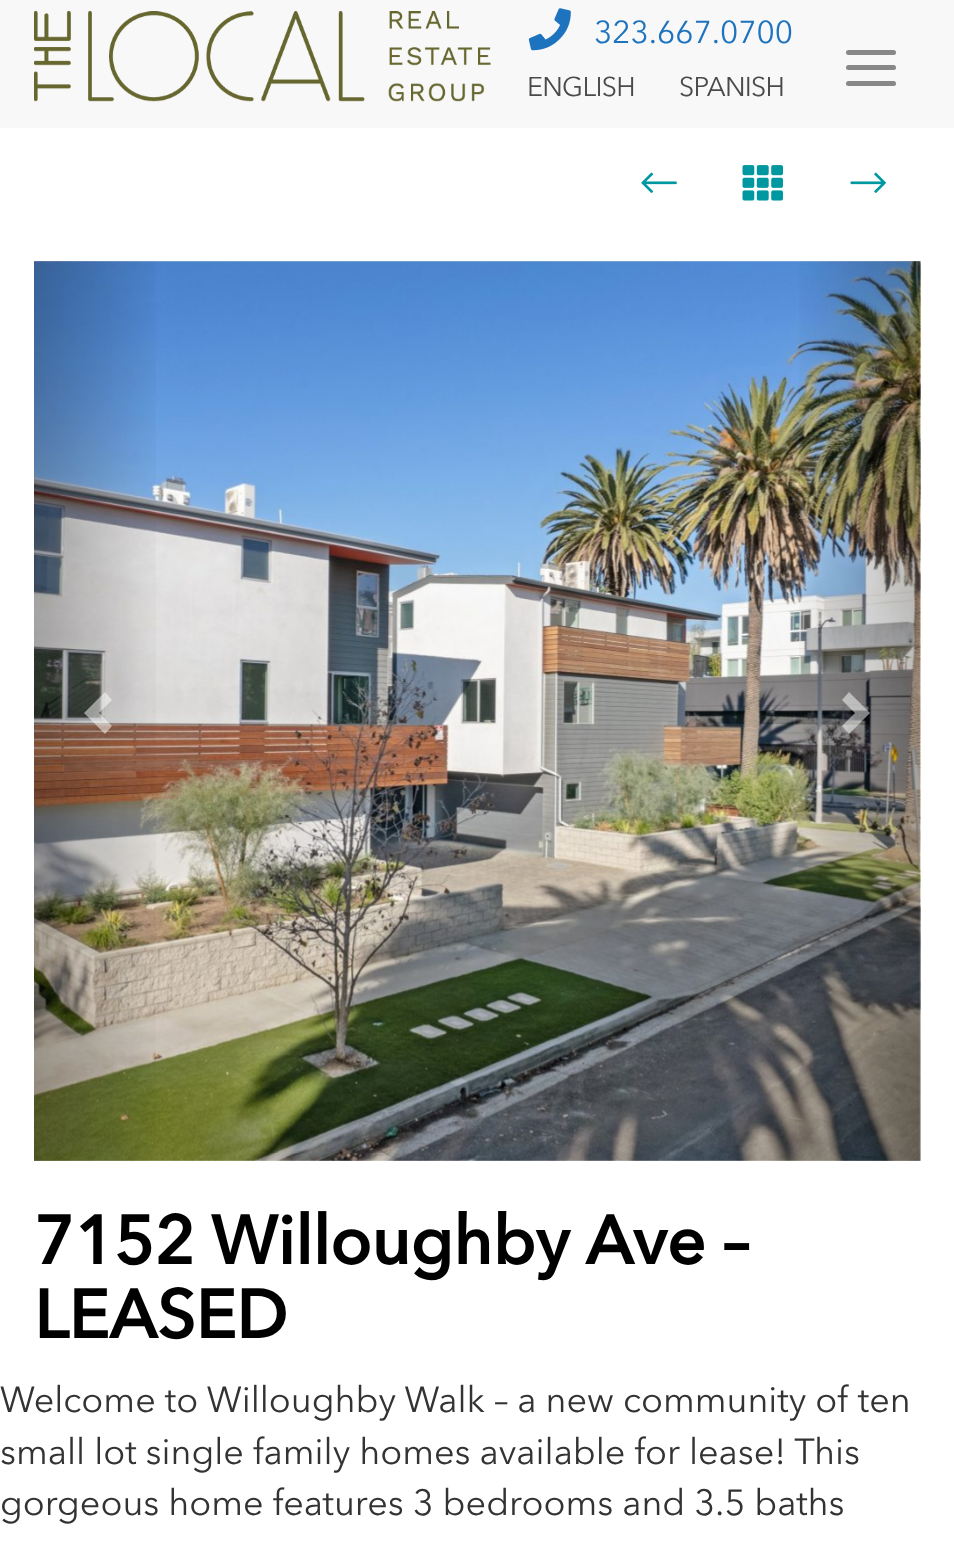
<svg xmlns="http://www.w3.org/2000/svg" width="954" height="1559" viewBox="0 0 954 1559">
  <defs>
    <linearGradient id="g1" gradientUnits="userSpaceOnUse" x1="34" y1="711" x2="167" y2="711"><stop offset="0" stop-color="#000" stop-opacity="0.25"/><stop offset="1" stop-color="#000" stop-opacity="0"/></linearGradient>
    <linearGradient id="g2" gradientUnits="userSpaceOnUse" x1="788" y1="711" x2="920" y2="711"><stop offset="0" stop-color="#000" stop-opacity="0"/><stop offset="1" stop-color="#000" stop-opacity="0.25"/></linearGradient>
  </defs>
  <rect width="100%" height="100%" fill="#fff"/>
  <path d="M0 0h954v128H0z" fill="#f8f8f8"/>
  <image x="34" y="11" width="457" height="91" href="img/1.png"/>
  <image x="528" y="8" width="43" height="43" href="img/2.png"/>
  <rect x="846" y="50" width="50" height="5" rx="2.5" fill="#888"/>
  <rect x="846" y="65" width="50" height="5" rx="2.5" fill="#888"/>
  <rect x="846" y="81" width="50" height="5" rx="2.5" fill="#888"/>
  <image x="641" y="172" width="36" height="21" href="img/3.png"/>
  <image x="742" y="165" width="41" height="36" href="img/4.png"/>
  <image x="850" y="172" width="36" height="21" href="img/5.png"/>
  <image x="34" y="261" width="887" height="900" href="img/6.png"/>
  <path d="M34 261h122v900H34z" fill="url(#g1)"/>
  <path d="M112 700L99 713L112 726L105 734L84 713L105 692Z" fill="#ffffff80"/>
  <path d="M799 261h121v900H799z" fill="url(#g2)"/>
  <path d="M870 713L849 734L842 726L855 713L842 700L849 692Z" fill="#ffffff80"/>
  <text x="594" y="43" font-family="Avenir Next" font-size="31.5" fill="#1e73be">323.667.0700</text>
  <g font-family="Avenir Next" font-size="27" letter-spacing="-0.75" fill="#4a4a4a">
    <text x="527" y="96">ENGLISH</text>
    <text x="679" y="96">SPANISH</text>
  </g>
  <g font-family="Avenir Next" font-size="67.5" font-weight="bold" fill="#000">
    <text x="34" y="1264">7152 Willoughby Ave –</text>
    <text x="34" y="1338">LEASED</text>
  </g>
  <g font-family="Avenir Next" font-size="36" fill="#333">
    <text x="0" y="1412">Welcome to Willoughby Walk – a new community of ten</text>
    <text x="0" y="1464">small lot single family homes available for lease! This</text>
    <text x="0" y="1515">gorgeous home features 3 bedrooms and 3.5 baths</text>
  </g>
</svg>
